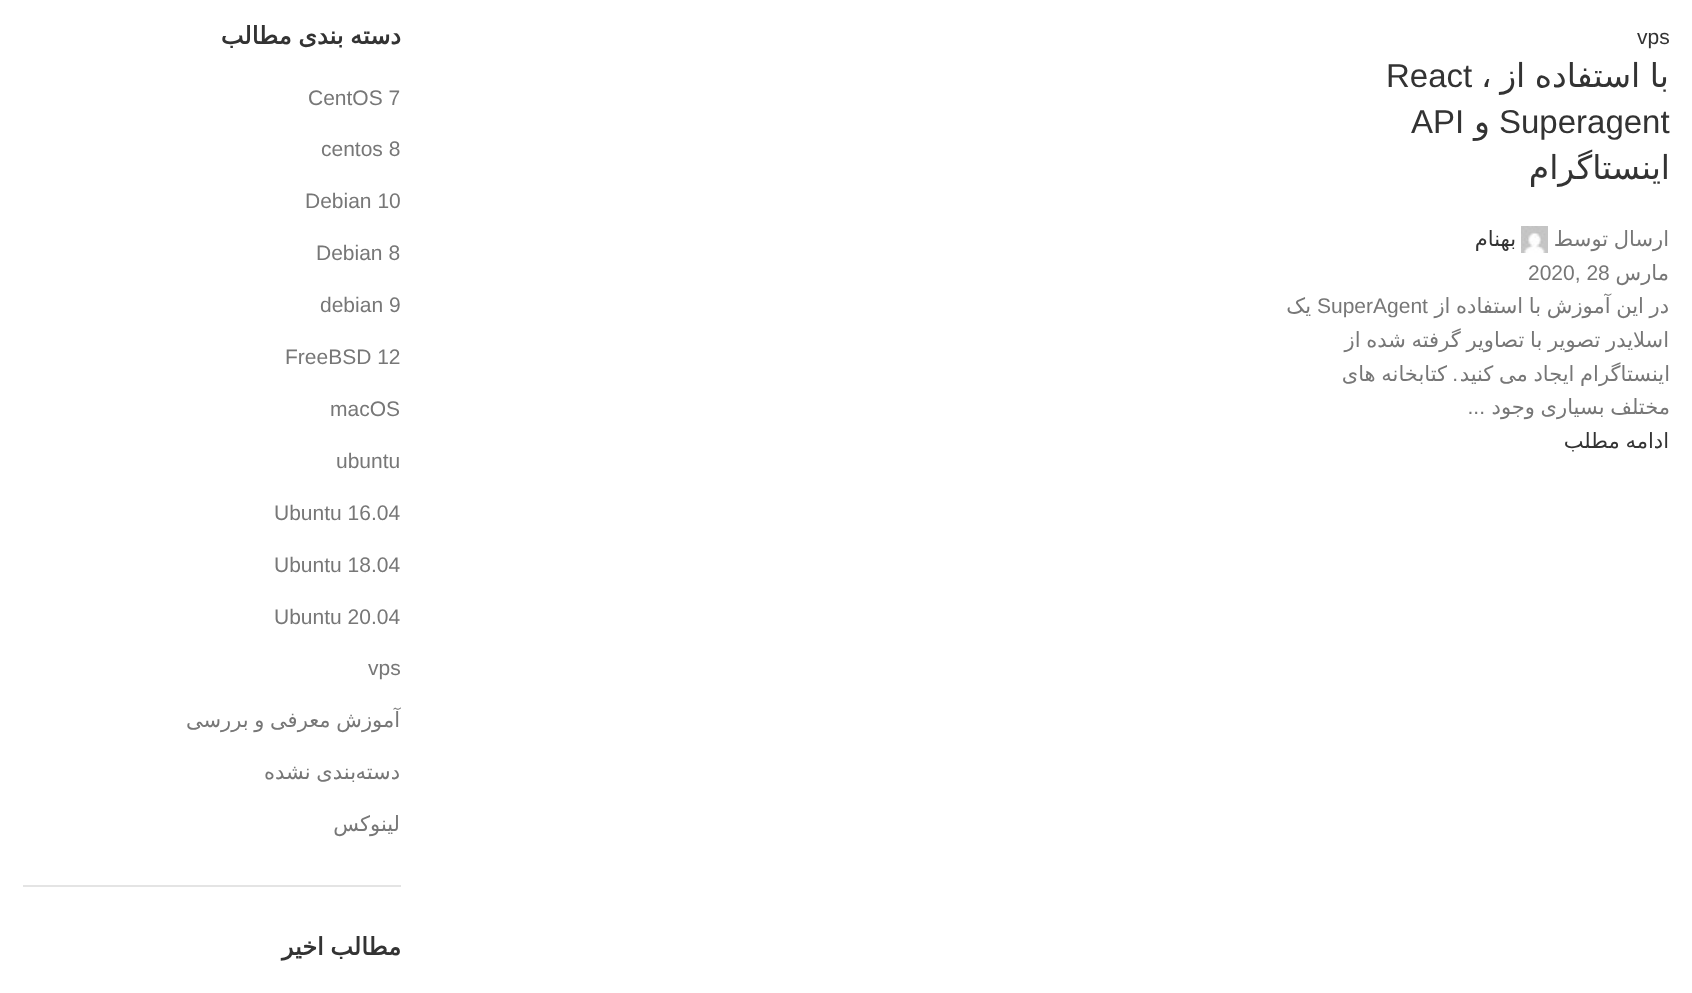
<svg xmlns="http://www.w3.org/2000/svg" width="1692" height="993" viewBox="0 0 1692 993">
  <rect width="100%" height="100%" fill="#fff"/>
  <image x="1521" y="226" width="27" height="27" href="img/1.png"/>
  <path d="M23 885h378v2H23z" fill="#e4e4e4"/>
  <text x="1637" y="44" font-family="Liberation Sans" font-size="21" fill="#333">vps</text>
  <text x="1669" y="87" word-spacing="-1" font-family="DejaVu Sans" font-size="33" direction="rtl" fill="#333">با استفاده از</text>
  <text x="1481" y="87" font-family="DejaVu Sans" font-size="33" fill="#333">،</text>
  <g font-family="Liberation Sans" font-size="33" fill="#333">
    <text x="1386" y="87">React</text>
    <text x="1499" y="133">Superagent</text>
  </g>
  <text x="1490" y="133" font-family="DejaVu Sans" font-size="33" direction="rtl" fill="#333">و</text>
  <text x="1411" y="133" font-family="Liberation Sans" font-size="33" fill="#333">API</text>
  <text x="1670" y="179" font-family="DejaVu Sans" font-size="33" direction="rtl" fill="#333">اینستاگرام</text>
  <text x="1669" y="246" word-spacing="-1" font-family="DejaVu Sans" font-size="21" direction="rtl" fill="#777">ارسال توسط</text>
  <text x="1516" y="246" font-family="DejaVu Sans" font-size="21" direction="rtl" fill="#333">بهنام</text>
  <text x="1669" y="280" font-family="DejaVu Sans" font-size="21" direction="rtl" fill="#777">مارس</text>
  <text x="1528" y="280" font-family="Liberation Sans" font-size="21" fill="#777">2020, 28</text>
  <text x="1669" y="313" word-spacing="-1" font-family="DejaVu Sans" font-size="21" direction="rtl" fill="#777">در این آموزش با استفاده از</text>
  <text x="1317" y="313" font-family="Liberation Sans" font-size="21" fill="#777">SuperAgent</text>
  <g font-family="DejaVu Sans" font-size="21" direction="rtl" fill="#777">
    <text x="1311" y="313">یک</text>
    <text x="1669" y="347" word-spacing="-1">اسلایدر تصویر با تصاویر گرفته شده از</text>
    <text x="1670" y="381" word-spacing="-1">اینستاگرام ایجاد می کنید</text>
  </g>
  <text x="1458" y="381" font-family="Liberation Sans" font-size="21" direction="rtl" fill="#777">.</text>
  <g font-family="DejaVu Sans" font-size="21" direction="rtl" fill="#777">
    <text x="1447" y="381" word-spacing="-1">کتابخانه های</text>
    <text x="1670" y="414" word-spacing="-1">مختلف بسیاری وجود</text>
  </g>
  <text x="1485" y="414" font-family="Liberation Sans" font-size="21" direction="rtl" fill="#777">...</text>
  <text x="1669" y="448" word-spacing="-1" font-family="DejaVu Sans" font-size="21" direction="rtl" fill="#333">ادامه مطلب</text>
  <text x="401" y="44" word-spacing="-1" font-family="DejaVu Sans" font-size="24" font-weight="bold" direction="rtl" fill="#333">دسته بندی مطالب</text>
  <g font-family="Liberation Sans" font-size="21" fill="#777">
    <text x="308" y="105">CentOS 7</text>
    <text x="321" y="156">centos 8</text>
    <text x="305" y="208">Debian 10</text>
    <text x="316" y="260">Debian 8</text>
    <text x="320" y="312">debian 9</text>
    <text x="285" y="364">FreeBSD 12</text>
    <text x="330" y="416">macOS</text>
    <text x="336" y="468">ubuntu</text>
    <text x="274" y="520">Ubuntu 16.04</text>
    <text x="274" y="572">Ubuntu 18.04</text>
    <text x="274" y="624">Ubuntu 20.04</text>
    <text x="368" y="675">vps</text>
  </g>
  <g font-family="DejaVu Sans" font-size="21" direction="rtl" fill="#777">
    <text x="400" y="727" word-spacing="-1">آموزش معرفی و بررسی</text>
    <text x="400" y="779">دسته</text>
    <text x="356" y="779" word-spacing="-1">بندی نشده</text>
    <text x="400" y="831">لینوکس</text>
  </g>
  <text x="401" y="955" word-spacing="-1" font-family="DejaVu Sans" font-size="24" font-weight="bold" direction="rtl" fill="#333">مطالب اخیر</text>
</svg>
